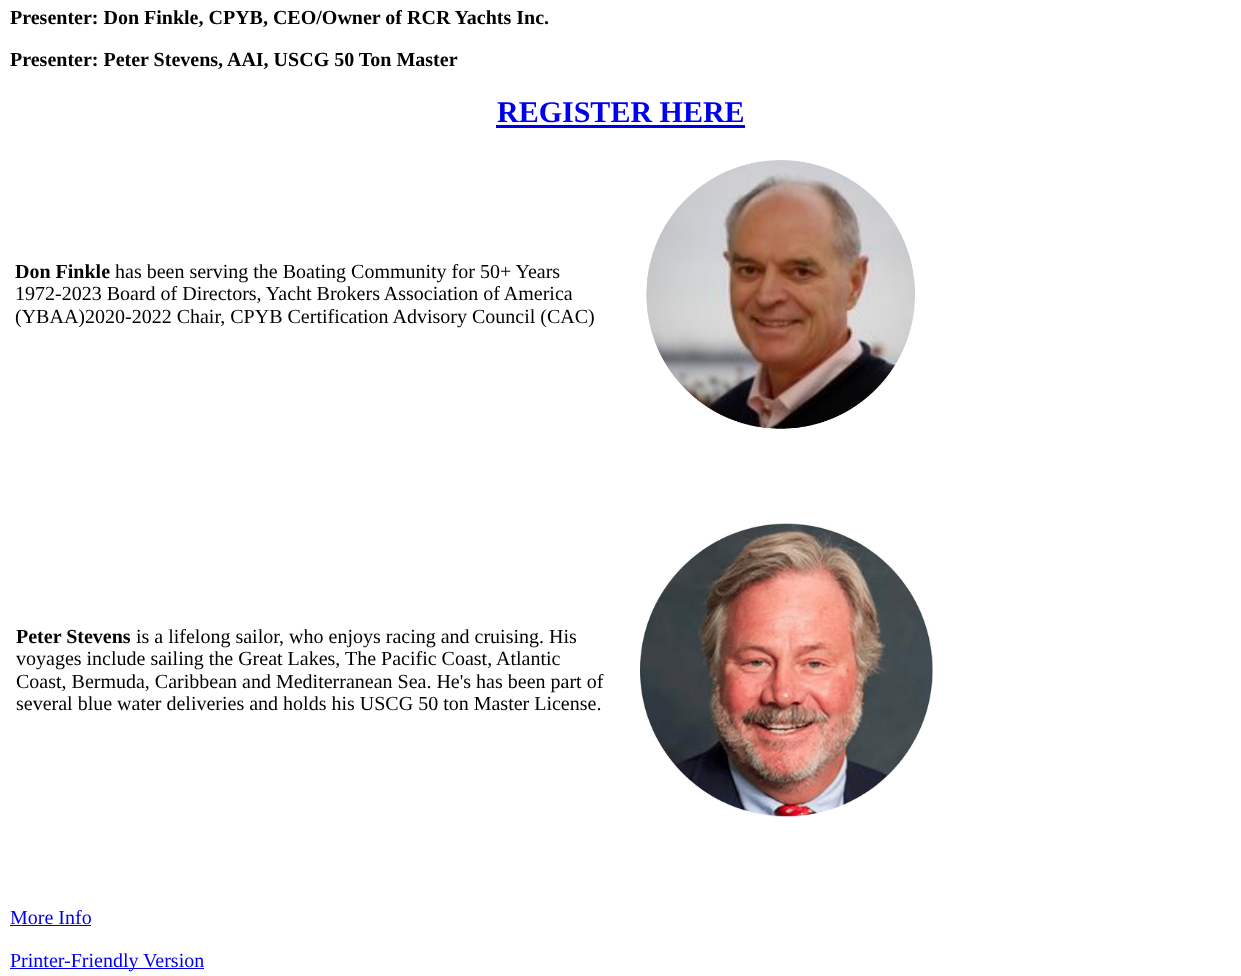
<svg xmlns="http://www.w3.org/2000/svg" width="1241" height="976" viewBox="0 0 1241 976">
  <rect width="100%" height="100%" fill="#fff"/>
  <path d="M496 125h249v3H496z" fill="#00e"/>
  <image x="646" y="160" width="269" height="269" href="img/1.png"/>
  <image x="640" y="523" width="293" height="294" href="img/2.png"/>
  <path d="M10 925h81v1H10z" fill="#00e"/>
  <path d="M10 968h194v1H10z" fill="#00e"/>
  <g font-family="Liberation Serif" font-size="20" font-weight="bold" fill="#000">
    <text x="10" y="24">Presenter: Don Finkle, CPYB, CEO/Owner of RCR Yachts Inc.</text>
    <text x="10" y="66">Presenter: Peter Stevens, AAI, USCG 50 Ton Master</text>
  </g>
  <text x="497" y="122" font-family="Liberation Serif" font-size="30" font-weight="bold" fill="#00e">REGISTER HERE</text>
  <text x="15" y="278" font-family="Liberation Serif" font-size="20" font-weight="bold" fill="#000">Don Finkle</text>
  <g font-family="Liberation Serif" font-size="20" fill="#000">
    <text x="115" y="278">has been serving the Boating Community for 50+ Years</text>
    <text x="15" y="300">1972-2023 Board of Directors, Yacht Brokers Association of America</text>
    <text x="15" y="323">(YBAA)2020-2022 Chair, CPYB Certification Advisory Council (CAC)</text>
  </g>
  <text x="16" y="643" font-family="Liberation Serif" font-size="20" font-weight="bold" fill="#000">Peter Stevens</text>
  <g font-family="Liberation Serif" font-size="20" fill="#000">
    <text x="136" y="643">is a lifelong sailor, who enjoys racing and cruising. His</text>
    <text x="16" y="665">voyages include sailing the Great Lakes, The Pacific Coast, Atlantic</text>
    <text x="16" y="688">Coast, Bermuda, Caribbean and Mediterranean Sea. He's has been part of</text>
    <text x="16" y="710">several blue water deliveries and holds his USCG 50 ton Master License.</text>
  </g>
  <g font-family="Liberation Serif" font-size="20" fill="#00e">
    <text x="10" y="924">More Info</text>
    <text x="10" y="967">Printer-Friendly Version</text>
  </g>
</svg>
